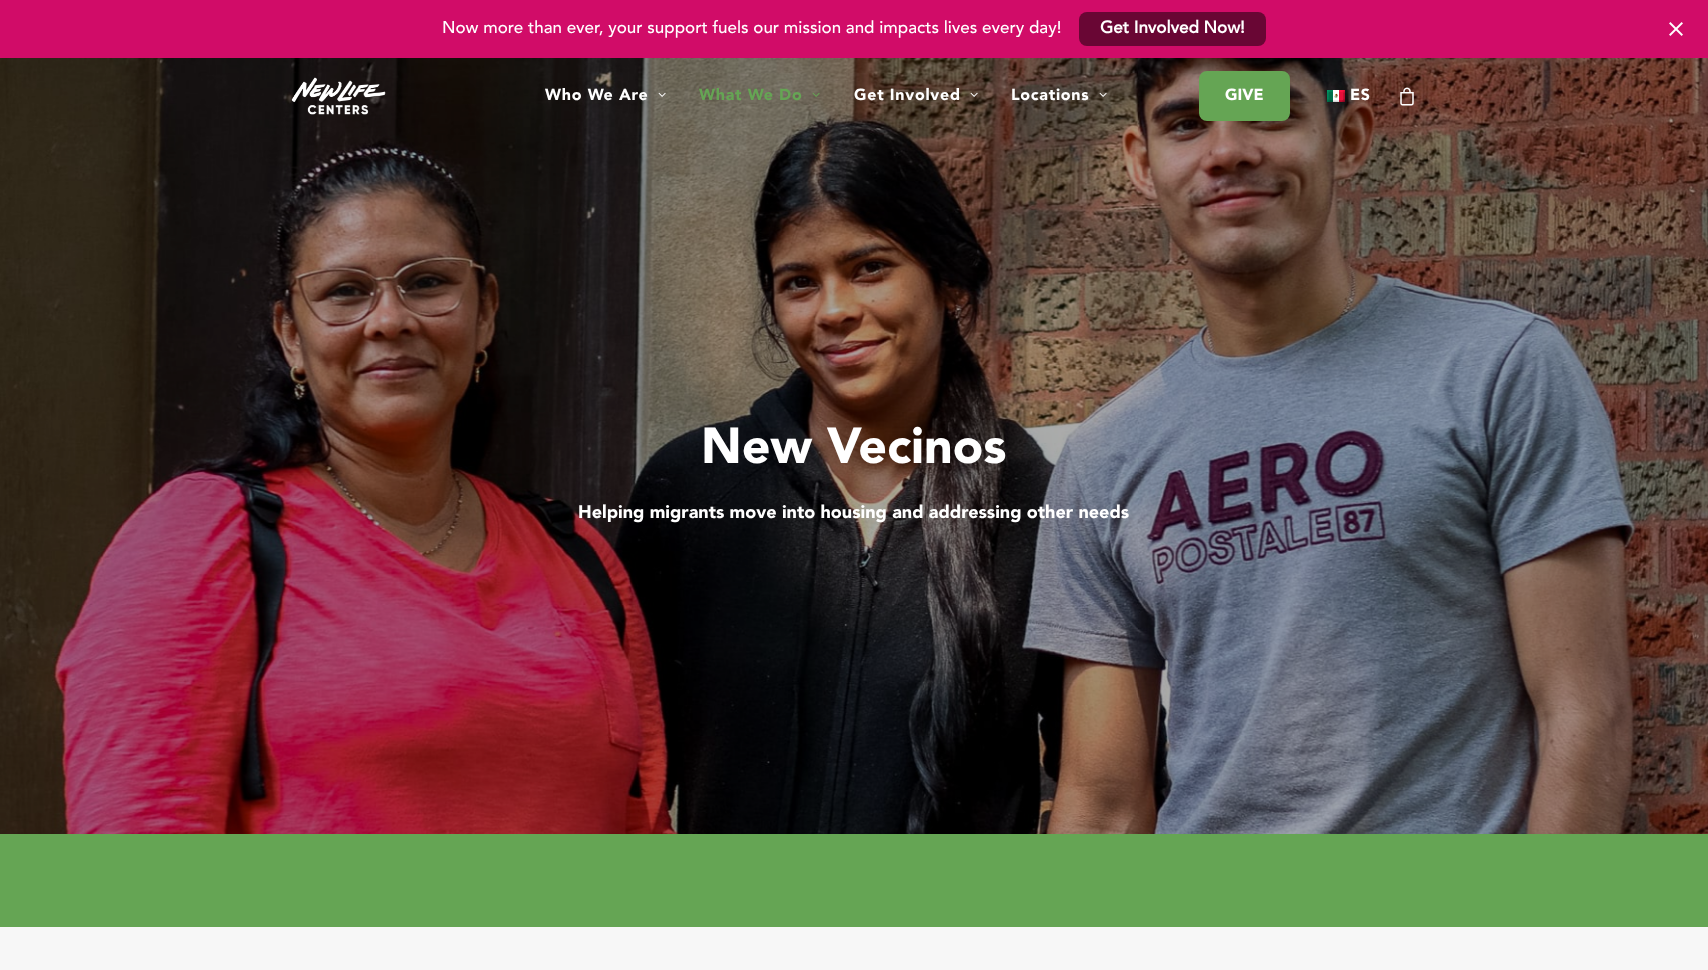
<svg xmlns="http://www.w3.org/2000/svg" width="1708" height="970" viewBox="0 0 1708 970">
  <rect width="100%" height="100%" fill="#fff"/>
  <path d="M0 0h1708v58H0z" fill="#d10c68"/>
  <rect x="1079" y="12" width="187" height="34" rx="8" fill="#690634"/>
  <image x="1669" y="22" width="14" height="14" href="img/1.png"/>
  <image x="0" y="58" width="1708" height="776" href="img/9.png"/>
  <image x="291" y="77" width="95" height="38" href="img/2.png"/>
  <image x="658" y="92" width="8" height="5" href="img/3.png"/>
  <image x="812" y="92" width="8" height="5" href="img/4.png"/>
  <image x="970" y="92" width="8" height="5" href="img/5.png"/>
  <image x="1099" y="92" width="8" height="5" href="img/6.png"/>
  <rect x="1200.5" y="72.5" width="88" height="47" rx="6.5" fill="#65a554" stroke="#65a554" stroke-width="3"/>
  <image x="1327" y="90" width="18" height="12" href="img/7.png"/>
  <image x="1400" y="87" width="14" height="19" href="img/8.png"/>
  <path d="M0 927h1708v43H0z" fill="#f7f7f7"/>
  <path d="M0 834h1708v93H0z" fill="#65a554"/>
  <text x="442" y="33" font-family="Avenir" font-size="17" font-weight="500" fill="#fff">Now more than ever, your support fuels our mission and impacts lives every day!</text>
  <text x="1100" y="33" font-family="Avenir" font-size="17" font-weight="bold" fill="#fff">Get Involved Now!</text>
  <text x="545" y="100" font-family="Avenir" font-size="16" font-weight="900" letter-spacing="0.75" fill="#fff">Who We Are</text>
  <text x="699" y="100" font-family="Avenir" font-size="16" font-weight="900" letter-spacing="0.75" fill="#65a554">What We Do</text>
  <g font-family="Avenir" font-size="16" font-weight="900" letter-spacing="0.75" fill="#fff">
    <text x="854" y="100">Get Involved</text>
    <text x="1011" y="100">Locations</text>
  </g>
  <text x="1225" y="100" font-family="Avenir" font-size="16" font-weight="900" fill="#fff">GIVE</text>
  <text x="1350" y="100" font-family="Avenir" font-size="16" font-weight="900" letter-spacing="0.75" fill="#fff">ES</text>
  <text x="701" y="463" font-family="Avenir" font-size="50" font-weight="900" fill="#fff">New Vecinos</text>
  <text x="578" y="518" font-family="Avenir" font-size="18" font-weight="900" fill="#fff">Helping migrants move into housing and addressing other needs</text>
</svg>
